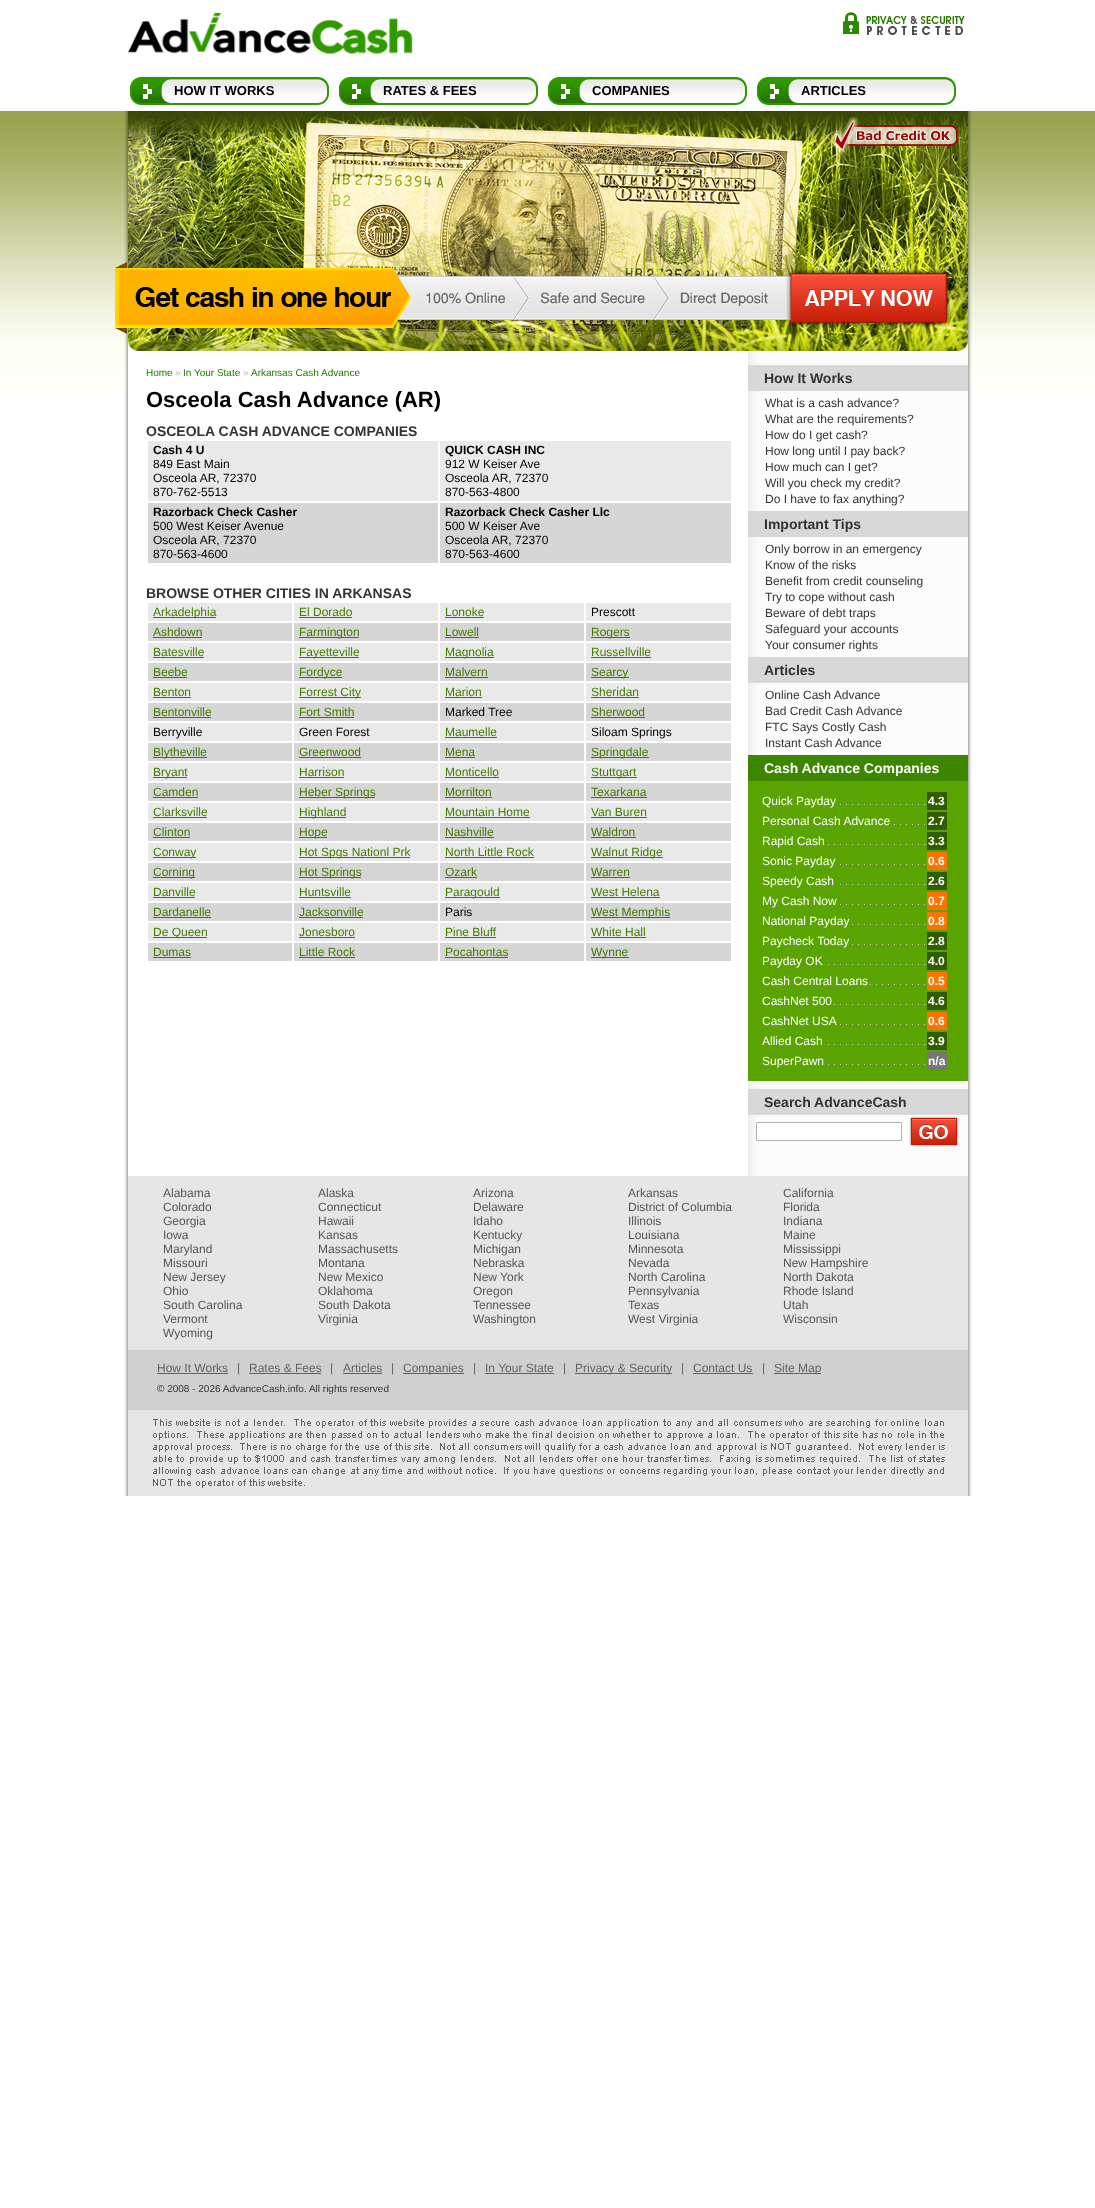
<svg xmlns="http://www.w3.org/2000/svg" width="1095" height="2208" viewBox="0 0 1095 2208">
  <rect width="100%" height="100%" fill="#fff"/>
  <image x="0" y="111" width="1095" height="283" href="img/1.png"/>
  <image x="128" y="12" width="285" height="42" href="img/2.png"/>
  <image x="843" y="12" width="122" height="23" href="img/3.png"/>
  <image x="130" y="77" width="199" height="28" href="img/4.png"/>
  <image x="339" y="77" width="199" height="28" href="img/4.png"/>
  <image x="548" y="77" width="199" height="28" href="img/4.png"/>
  <image x="757" y="77" width="199" height="28" href="img/4.png"/>
  <image x="124" y="111" width="848" height="1385" href="img/5.png"/>
  <image x="128" y="111" width="840" height="240" href="img/6.png"/>
  <image x="115" y="262" width="676" height="72" href="img/7.png"/>
  <image x="786" y="269" width="165" height="58" href="img/8.png"/>
  <path d="M148 441h290v60H148z" fill="#e9e9e9"/>
  <path d="M440 441h291v60H440z" fill="#e9e9e9"/>
  <path d="M148 503h290v60H148z" fill="#d6d6d6"/>
  <path d="M440 503h291v60H440z" fill="#d6d6d6"/>
  <path d="M148 603h144v18H148z" fill="#e9e9e9"/>
  <path d="M153 617h63v1H153z" fill="#437b00"/>
  <path d="M294 603h144v18H294z" fill="#e9e9e9"/>
  <path d="M299 617h53v1H299z" fill="#437b00"/>
  <path d="M440 603h144v18H440z" fill="#e9e9e9"/>
  <path d="M445 617h39v1H445z" fill="#437b00"/>
  <path d="M586 603h145v18H586z" fill="#e9e9e9"/>
  <path d="M148 623h144v18H148z" fill="#d6d6d6"/>
  <path d="M153 637h49v1H153z" fill="#437b00"/>
  <path d="M294 623h144v18H294z" fill="#d6d6d6"/>
  <path d="M299 637h60v1H299z" fill="#437b00"/>
  <path d="M440 623h144v18H440z" fill="#d6d6d6"/>
  <path d="M445 637h34v1H445z" fill="#437b00"/>
  <path d="M586 623h145v18H586z" fill="#d6d6d6"/>
  <path d="M591 637h39v1H591z" fill="#437b00"/>
  <path d="M148 643h144v18H148z" fill="#e9e9e9"/>
  <path d="M153 657h51v1H153z" fill="#437b00"/>
  <path d="M294 643h144v18H294z" fill="#e9e9e9"/>
  <path d="M299 657h60v1H299z" fill="#437b00"/>
  <path d="M440 643h144v18H440z" fill="#e9e9e9"/>
  <path d="M445 657h49v1H445z" fill="#437b00"/>
  <path d="M586 643h145v18H586z" fill="#e9e9e9"/>
  <path d="M591 657h60v1H591z" fill="#437b00"/>
  <path d="M148 663h144v18H148z" fill="#d6d6d6"/>
  <path d="M153 677h34v1H153z" fill="#437b00"/>
  <path d="M294 663h144v18H294z" fill="#d6d6d6"/>
  <path d="M299 677h43v1H299z" fill="#437b00"/>
  <path d="M440 663h144v18H440z" fill="#d6d6d6"/>
  <path d="M445 677h43v1H445z" fill="#437b00"/>
  <path d="M586 663h145v18H586z" fill="#d6d6d6"/>
  <path d="M591 677h38v1H591z" fill="#437b00"/>
  <path d="M148 683h144v18H148z" fill="#e9e9e9"/>
  <path d="M153 697h38v1H153z" fill="#437b00"/>
  <path d="M294 683h144v18H294z" fill="#e9e9e9"/>
  <path d="M299 697h62v1H299z" fill="#437b00"/>
  <path d="M440 683h144v18H440z" fill="#e9e9e9"/>
  <path d="M445 697h37v1H445z" fill="#437b00"/>
  <path d="M586 683h145v18H586z" fill="#e9e9e9"/>
  <path d="M591 697h48v1H591z" fill="#437b00"/>
  <path d="M148 703h144v18H148z" fill="#d6d6d6"/>
  <path d="M153 717h58v1H153z" fill="#437b00"/>
  <path d="M294 703h144v18H294z" fill="#d6d6d6"/>
  <path d="M299 717h55v1H299z" fill="#437b00"/>
  <path d="M440 703h144v18H440z" fill="#d6d6d6"/>
  <path d="M586 703h145v18H586z" fill="#d6d6d6"/>
  <path d="M591 717h54v1H591z" fill="#437b00"/>
  <path d="M148 723h144v18H148z" fill="#e9e9e9"/>
  <path d="M294 723h144v18H294z" fill="#e9e9e9"/>
  <path d="M440 723h144v18H440z" fill="#e9e9e9"/>
  <path d="M445 737h52v1H445z" fill="#437b00"/>
  <path d="M586 723h145v18H586z" fill="#e9e9e9"/>
  <path d="M148 743h144v18H148z" fill="#d6d6d6"/>
  <path d="M153 757h54v1H153z" fill="#437b00"/>
  <path d="M294 743h144v18H294z" fill="#d6d6d6"/>
  <path d="M299 757h62v1H299z" fill="#437b00"/>
  <path d="M440 743h144v18H440z" fill="#d6d6d6"/>
  <path d="M445 757h30v1H445z" fill="#437b00"/>
  <path d="M586 743h145v18H586z" fill="#d6d6d6"/>
  <path d="M591 757h58v1H591z" fill="#437b00"/>
  <path d="M148 763h144v18H148z" fill="#e9e9e9"/>
  <path d="M153 777h34v1H153z" fill="#437b00"/>
  <path d="M294 763h144v18H294z" fill="#e9e9e9"/>
  <path d="M299 777h45v1H299z" fill="#437b00"/>
  <path d="M440 763h144v18H440z" fill="#e9e9e9"/>
  <path d="M445 777h54v1H445z" fill="#437b00"/>
  <path d="M586 763h145v18H586z" fill="#e9e9e9"/>
  <path d="M591 777h46v1H591z" fill="#437b00"/>
  <path d="M148 783h144v18H148z" fill="#d6d6d6"/>
  <path d="M153 797h45v1H153z" fill="#437b00"/>
  <path d="M294 783h144v18H294z" fill="#d6d6d6"/>
  <path d="M299 797h76v1H299z" fill="#437b00"/>
  <path d="M440 783h144v18H440z" fill="#d6d6d6"/>
  <path d="M445 797h47v1H445z" fill="#437b00"/>
  <path d="M586 783h145v18H586z" fill="#d6d6d6"/>
  <path d="M591 797h56v1H591z" fill="#437b00"/>
  <path d="M148 803h144v18H148z" fill="#e9e9e9"/>
  <path d="M153 817h54v1H153z" fill="#437b00"/>
  <path d="M294 803h144v18H294z" fill="#e9e9e9"/>
  <path d="M299 817h47v1H299z" fill="#437b00"/>
  <path d="M440 803h144v18H440z" fill="#e9e9e9"/>
  <path d="M445 817h85v1H445z" fill="#437b00"/>
  <path d="M586 803h145v18H586z" fill="#e9e9e9"/>
  <path d="M591 817h56v1H591z" fill="#437b00"/>
  <path d="M148 823h144v18H148z" fill="#d6d6d6"/>
  <path d="M153 837h37v1H153z" fill="#437b00"/>
  <path d="M294 823h144v18H294z" fill="#d6d6d6"/>
  <path d="M299 837h28v1H299z" fill="#437b00"/>
  <path d="M440 823h144v18H440z" fill="#d6d6d6"/>
  <path d="M445 837h49v1H445z" fill="#437b00"/>
  <path d="M586 823h145v18H586z" fill="#d6d6d6"/>
  <path d="M591 837h45v1H591z" fill="#437b00"/>
  <path d="M148 843h144v18H148z" fill="#e9e9e9"/>
  <path d="M153 857h43v1H153z" fill="#437b00"/>
  <path d="M294 843h144v18H294z" fill="#e9e9e9"/>
  <path d="M299 857h111v1H299z" fill="#437b00"/>
  <path d="M440 843h144v18H440z" fill="#e9e9e9"/>
  <path d="M445 857h89v1H445z" fill="#437b00"/>
  <path d="M586 843h145v18H586z" fill="#e9e9e9"/>
  <path d="M591 857h72v1H591z" fill="#437b00"/>
  <path d="M148 863h144v18H148z" fill="#d6d6d6"/>
  <path d="M153 877h42v1H153z" fill="#437b00"/>
  <path d="M294 863h144v18H294z" fill="#d6d6d6"/>
  <path d="M299 877h62v1H299z" fill="#437b00"/>
  <path d="M440 863h144v18H440z" fill="#d6d6d6"/>
  <path d="M445 877h32v1H445z" fill="#437b00"/>
  <path d="M586 863h145v18H586z" fill="#d6d6d6"/>
  <path d="M591 877h39v1H591z" fill="#437b00"/>
  <path d="M148 883h144v18H148z" fill="#e9e9e9"/>
  <path d="M153 897h42v1H153z" fill="#437b00"/>
  <path d="M294 883h144v18H294z" fill="#e9e9e9"/>
  <path d="M299 897h52v1H299z" fill="#437b00"/>
  <path d="M440 883h144v18H440z" fill="#e9e9e9"/>
  <path d="M445 897h55v1H445z" fill="#437b00"/>
  <path d="M586 883h145v18H586z" fill="#e9e9e9"/>
  <path d="M591 897h69v1H591z" fill="#437b00"/>
  <path d="M148 903h144v18H148z" fill="#d6d6d6"/>
  <path d="M153 917h58v1H153z" fill="#437b00"/>
  <path d="M294 903h144v18H294z" fill="#d6d6d6"/>
  <path d="M299 917h64v1H299z" fill="#437b00"/>
  <path d="M440 903h144v18H440z" fill="#d6d6d6"/>
  <path d="M586 903h145v18H586z" fill="#d6d6d6"/>
  <path d="M591 917h79v1H591z" fill="#437b00"/>
  <path d="M148 923h144v18H148z" fill="#e9e9e9"/>
  <path d="M153 937h54v1H153z" fill="#437b00"/>
  <path d="M294 923h144v18H294z" fill="#e9e9e9"/>
  <path d="M299 937h56v1H299z" fill="#437b00"/>
  <path d="M440 923h144v18H440z" fill="#e9e9e9"/>
  <path d="M445 937h51v1H445z" fill="#437b00"/>
  <path d="M586 923h145v18H586z" fill="#e9e9e9"/>
  <path d="M591 937h55v1H591z" fill="#437b00"/>
  <path d="M148 943h144v18H148z" fill="#d6d6d6"/>
  <path d="M153 957h38v1H153z" fill="#437b00"/>
  <path d="M294 943h144v18H294z" fill="#d6d6d6"/>
  <path d="M299 957h56v1H299z" fill="#437b00"/>
  <path d="M440 943h144v18H440z" fill="#d6d6d6"/>
  <path d="M445 957h63v1H445z" fill="#437b00"/>
  <path d="M586 943h145v18H586z" fill="#d6d6d6"/>
  <path d="M591 957h38v1H591z" fill="#437b00"/>
  <path d="M748 365h220v26H748z" fill="#d8d8d8"/>
  <path d="M748 511h220v26H748z" fill="#d8d8d8"/>
  <path d="M748 657h220v26H748z" fill="#d8d8d8"/>
  <path d="M748 781h220v300H748z" fill="#59a400"/>
  <path d="M748 755h220v26H748z" fill="#3c8600"/>
  <image x="838" y="804" width="89" height="1" href="img/9.png"/>
  <path d="M927 792h20v18H927z" fill="#325c00"/>
  <image x="892" y="824" width="35" height="1" href="img/10.png"/>
  <path d="M927 812h20v18H927z" fill="#325c00"/>
  <image x="826" y="844" width="101" height="1" href="img/11.png"/>
  <path d="M927 832h20v18H927z" fill="#325c00"/>
  <image x="837" y="864" width="90" height="1" href="img/12.png"/>
  <path d="M927 852h20v18H927z" fill="#ff7200"/>
  <image x="836" y="884" width="91" height="1" href="img/13.png"/>
  <path d="M927 872h20v18H927z" fill="#325c00"/>
  <image x="838" y="904" width="89" height="1" href="img/9.png"/>
  <path d="M927 892h20v18H927z" fill="#ff7200"/>
  <image x="851" y="924" width="76" height="1" href="img/14.png"/>
  <path d="M927 912h20v18H927z" fill="#ff7200"/>
  <image x="851" y="944" width="76" height="1" href="img/14.png"/>
  <path d="M927 932h20v18H927z" fill="#325c00"/>
  <image x="824" y="964" width="103" height="1" href="img/15.png"/>
  <path d="M927 952h20v18H927z" fill="#325c00"/>
  <image x="870" y="984" width="57" height="1" href="img/16.png"/>
  <path d="M927 972h20v18H927z" fill="#ff7200"/>
  <image x="834" y="1004" width="93" height="1" href="img/17.png"/>
  <path d="M927 992h20v18H927z" fill="#325c00"/>
  <image x="838" y="1024" width="89" height="1" href="img/9.png"/>
  <path d="M927 1012h20v18H927z" fill="#ff7200"/>
  <image x="824" y="1044" width="103" height="1" href="img/15.png"/>
  <path d="M927 1032h20v18H927z" fill="#325c00"/>
  <image x="826" y="1064" width="101" height="1" href="img/11.png"/>
  <path d="M927 1052h20v18H927z" fill="#767676"/>
  <path d="M748 1089h220v26H748z" fill="#d8d8d8"/>
  <path d="M756.5 1122.5h145v18H756.5z" fill="#fff" stroke="#b3b3b3"/>
  <image x="909" y="1116" width="50" height="31" href="img/18.png"/>
  <path d="M128 1176h840v174H128z" fill="#e6e6e6"/>
  <path d="M128 1350h840v60H128z" fill="#d0d0d0"/>
  <path d="M157 1373h71v1H157z" fill="#626262"/>
  <path d="M249 1373h72v1H249z" fill="#626262"/>
  <path d="M343 1373h39v1H343z" fill="#626262"/>
  <path d="M403 1373h61v1H403z" fill="#626262"/>
  <path d="M485 1373h69v1H485z" fill="#626262"/>
  <path d="M575 1373h97v1H575z" fill="#626262"/>
  <path d="M693 1373h60v1H693z" fill="#626262"/>
  <path d="M774 1373h47v1H774z" fill="#626262"/>
  <path d="M128 1410h840v86H128z" fill="#e6e6e6"/>
  <image x="153" y="1419" width="792" height="69" href="img/19.png"/>
  <g font-family="Liberation Sans" font-size="13" font-weight="bold" fill="#000">
    <text x="174" y="95">HOW IT WORKS</text>
    <text x="383" y="95">RATES &amp; FEES</text>
    <text x="592" y="95">COMPANIES</text>
    <text x="801" y="95">ARTICLES</text>
  </g>
  <text x="146" y="376" font-family="Liberation Sans" font-size="10" fill="#257700">Home</text>
  <text x="175" y="376" font-family="Liberation Sans" font-size="10" fill="#b1b0b0">»</text>
  <text x="183" y="376" font-family="Liberation Sans" font-size="10" fill="#257700">In Your State</text>
  <text x="243" y="376" font-family="Liberation Sans" font-size="10" fill="#b1b0b0">»</text>
  <text x="251" y="376" font-family="Liberation Sans" font-size="10" fill="#257700">Arkansas Cash Advance</text>
  <text x="146" y="407" font-family="Liberation Sans" font-size="22" font-weight="bold" fill="#000">Osceola Cash Advance (AR)</text>
  <text x="146" y="436" font-family="Liberation Sans" font-size="14" font-weight="bold" fill="#333">OSCEOLA CASH ADVANCE COMPANIES</text>
  <text x="153" y="454" font-family="Liberation Sans" font-size="12" font-weight="bold" fill="#000">Cash 4 U</text>
  <g font-family="Liberation Sans" font-size="12" fill="#000">
    <text x="153" y="468">849 East Main</text>
    <text x="153" y="482">Osceola AR, 72370</text>
    <text x="153" y="496">870-762-5513</text>
  </g>
  <text x="445" y="454" font-family="Liberation Sans" font-size="12" font-weight="bold" fill="#000">QUICK CASH INC</text>
  <g font-family="Liberation Sans" font-size="12" fill="#000">
    <text x="445" y="468">912 W Keiser Ave</text>
    <text x="445" y="482">Osceola AR, 72370</text>
    <text x="445" y="496">870-563-4800</text>
  </g>
  <text x="153" y="516" font-family="Liberation Sans" font-size="12" font-weight="bold" fill="#000">Razorback Check Casher</text>
  <g font-family="Liberation Sans" font-size="12" fill="#000">
    <text x="153" y="530">500 West Keiser Avenue</text>
    <text x="153" y="544">Osceola AR, 72370</text>
    <text x="153" y="558">870-563-4600</text>
  </g>
  <text x="445" y="516" font-family="Liberation Sans" font-size="12" font-weight="bold" fill="#000">Razorback Check Casher Llc</text>
  <g font-family="Liberation Sans" font-size="12" fill="#000">
    <text x="445" y="530">500 W Keiser Ave</text>
    <text x="445" y="544">Osceola AR, 72370</text>
    <text x="445" y="558">870-563-4600</text>
  </g>
  <text x="146" y="598" font-family="Liberation Sans" font-size="14" font-weight="bold" fill="#333">BROWSE OTHER CITIES IN ARKANSAS</text>
  <g font-family="Liberation Sans" font-size="12" fill="#437b00">
    <text x="153" y="616">Arkadelphia</text>
    <text x="299" y="616">El Dorado</text>
    <text x="445" y="616">Lonoke</text>
  </g>
  <text x="591" y="616" font-family="Liberation Sans" font-size="12" fill="#000">Prescott</text>
  <g font-family="Liberation Sans" font-size="12" fill="#437b00">
    <text x="153" y="636">Ashdown</text>
    <text x="299" y="636">Farmington</text>
    <text x="445" y="636">Lowell</text>
    <text x="591" y="636">Rogers</text>
    <text x="153" y="656">Batesville</text>
    <text x="299" y="656">Fayetteville</text>
    <text x="445" y="656">Magnolia</text>
    <text x="591" y="656">Russellville</text>
    <text x="153" y="676">Beebe</text>
    <text x="299" y="676">Fordyce</text>
    <text x="445" y="676">Malvern</text>
    <text x="591" y="676">Searcy</text>
    <text x="153" y="696">Benton</text>
    <text x="299" y="696">Forrest City</text>
    <text x="445" y="696">Marion</text>
    <text x="591" y="696">Sheridan</text>
    <text x="153" y="716">Bentonville</text>
    <text x="299" y="716">Fort Smith</text>
  </g>
  <text x="445" y="716" font-family="Liberation Sans" font-size="12" fill="#000">Marked Tree</text>
  <text x="591" y="716" font-family="Liberation Sans" font-size="12" fill="#437b00">Sherwood</text>
  <g font-family="Liberation Sans" font-size="12" fill="#000">
    <text x="153" y="736">Berryville</text>
    <text x="299" y="736">Green Forest</text>
  </g>
  <text x="445" y="736" font-family="Liberation Sans" font-size="12" fill="#437b00">Maumelle</text>
  <text x="591" y="736" font-family="Liberation Sans" font-size="12" fill="#000">Siloam Springs</text>
  <g font-family="Liberation Sans" font-size="12" fill="#437b00">
    <text x="153" y="756">Blytheville</text>
    <text x="299" y="756">Greenwood</text>
    <text x="445" y="756">Mena</text>
    <text x="591" y="756">Springdale</text>
    <text x="153" y="776">Bryant</text>
    <text x="299" y="776">Harrison</text>
    <text x="445" y="776">Monticello</text>
    <text x="591" y="776">Stuttgart</text>
    <text x="153" y="796">Camden</text>
    <text x="299" y="796">Heber Springs</text>
    <text x="445" y="796">Morrilton</text>
    <text x="591" y="796">Texarkana</text>
    <text x="153" y="816">Clarksville</text>
    <text x="299" y="816">Highland</text>
    <text x="445" y="816">Mountain Home</text>
    <text x="591" y="816">Van Buren</text>
    <text x="153" y="836">Clinton</text>
    <text x="299" y="836">Hope</text>
    <text x="445" y="836">Nashville</text>
    <text x="591" y="836">Waldron</text>
    <text x="153" y="856">Conway</text>
    <text x="299" y="856">Hot Spgs Nationl Prk</text>
    <text x="445" y="856">North Little Rock</text>
    <text x="591" y="856">Walnut Ridge</text>
    <text x="153" y="876">Corning</text>
    <text x="299" y="876">Hot Springs</text>
    <text x="445" y="876">Ozark</text>
    <text x="591" y="876">Warren</text>
    <text x="153" y="896">Danville</text>
    <text x="299" y="896">Huntsville</text>
    <text x="445" y="896">Paragould</text>
    <text x="591" y="896">West Helena</text>
    <text x="153" y="916">Dardanelle</text>
    <text x="299" y="916">Jacksonville</text>
  </g>
  <text x="445" y="916" font-family="Liberation Sans" font-size="12" fill="#000">Paris</text>
  <g font-family="Liberation Sans" font-size="12" fill="#437b00">
    <text x="591" y="916">West Memphis</text>
    <text x="153" y="936">De Queen</text>
    <text x="299" y="936">Jonesboro</text>
    <text x="445" y="936">Pine Bluff</text>
    <text x="591" y="936">White Hall</text>
    <text x="153" y="956">Dumas</text>
    <text x="299" y="956">Little Rock</text>
    <text x="445" y="956">Pocahontas</text>
    <text x="591" y="956">Wynne</text>
  </g>
  <text x="764" y="383" font-family="Liberation Sans" font-size="14" font-weight="bold" fill="#333">How It Works</text>
  <g font-family="Liberation Sans" font-size="12" fill="#333">
    <text x="765" y="407">What is a cash advance?</text>
    <text x="765" y="423">What are the requirements?</text>
    <text x="765" y="439">How do I get cash?</text>
    <text x="765" y="455">How long until I pay back?</text>
    <text x="765" y="471">How much can I get?</text>
    <text x="765" y="487">Will you check my credit?</text>
    <text x="765" y="503">Do I have to fax anything?</text>
  </g>
  <text x="764" y="529" font-family="Liberation Sans" font-size="14" font-weight="bold" fill="#333">Important Tips</text>
  <g font-family="Liberation Sans" font-size="12" fill="#333">
    <text x="765" y="553">Only borrow in an emergency</text>
    <text x="765" y="569">Know of the risks</text>
    <text x="765" y="585">Benefit from credit counseling</text>
    <text x="765" y="601">Try to cope without cash</text>
    <text x="765" y="617">Beware of debt traps</text>
    <text x="765" y="633">Safeguard your accounts</text>
    <text x="765" y="649">Your consumer rights</text>
  </g>
  <text x="764" y="675" font-family="Liberation Sans" font-size="14" font-weight="bold" fill="#333">Articles</text>
  <g font-family="Liberation Sans" font-size="12" fill="#333">
    <text x="765" y="699">Online Cash Advance</text>
    <text x="765" y="715">Bad Credit Cash Advance</text>
    <text x="765" y="731">FTC Says Costly Cash</text>
    <text x="765" y="747">Instant Cash Advance</text>
  </g>
  <text x="764" y="773" font-family="Liberation Sans" font-size="14" font-weight="bold" fill="#fefefe">Cash Advance Companies</text>
  <text x="762" y="805" font-family="Liberation Sans" font-size="12" fill="#fefefe">Quick Payday</text>
  <text x="928" y="805" font-family="Liberation Sans" font-size="12" font-weight="bold" fill="#fefefe">4.3</text>
  <text x="762" y="825" font-family="Liberation Sans" font-size="12" fill="#fefefe">Personal Cash Advance</text>
  <text x="928" y="825" font-family="Liberation Sans" font-size="12" font-weight="bold" fill="#fefefe">2.7</text>
  <text x="762" y="845" font-family="Liberation Sans" font-size="12" fill="#fefefe">Rapid Cash</text>
  <text x="928" y="845" font-family="Liberation Sans" font-size="12" font-weight="bold" fill="#fefefe">3.3</text>
  <text x="762" y="865" font-family="Liberation Sans" font-size="12" fill="#fefefe">Sonic Payday</text>
  <text x="928" y="865" font-family="Liberation Sans" font-size="12" font-weight="bold" fill="#fefefe">0.6</text>
  <text x="762" y="885" font-family="Liberation Sans" font-size="12" fill="#fefefe">Speedy Cash</text>
  <text x="928" y="885" font-family="Liberation Sans" font-size="12" font-weight="bold" fill="#fefefe">2.6</text>
  <text x="762" y="905" font-family="Liberation Sans" font-size="12" fill="#fefefe">My Cash Now</text>
  <text x="928" y="905" font-family="Liberation Sans" font-size="12" font-weight="bold" fill="#fefefe">0.7</text>
  <text x="762" y="925" font-family="Liberation Sans" font-size="12" fill="#fefefe">National Payday</text>
  <text x="928" y="925" font-family="Liberation Sans" font-size="12" font-weight="bold" fill="#fefefe">0.8</text>
  <text x="762" y="945" font-family="Liberation Sans" font-size="12" fill="#fefefe">Paycheck Today</text>
  <text x="928" y="945" font-family="Liberation Sans" font-size="12" font-weight="bold" fill="#fefefe">2.8</text>
  <text x="762" y="965" font-family="Liberation Sans" font-size="12" fill="#fefefe">Payday OK</text>
  <text x="928" y="965" font-family="Liberation Sans" font-size="12" font-weight="bold" fill="#fefefe">4.0</text>
  <text x="762" y="985" font-family="Liberation Sans" font-size="12" fill="#fefefe">Cash Central Loans</text>
  <text x="928" y="985" font-family="Liberation Sans" font-size="12" font-weight="bold" fill="#fefefe">0.5</text>
  <text x="762" y="1005" font-family="Liberation Sans" font-size="12" fill="#fefefe">CashNet 500</text>
  <text x="928" y="1005" font-family="Liberation Sans" font-size="12" font-weight="bold" fill="#fefefe">4.6</text>
  <text x="762" y="1025" font-family="Liberation Sans" font-size="12" fill="#fefefe">CashNet USA</text>
  <text x="928" y="1025" font-family="Liberation Sans" font-size="12" font-weight="bold" fill="#fefefe">0.6</text>
  <text x="762" y="1045" font-family="Liberation Sans" font-size="12" fill="#fefefe">Allied Cash</text>
  <text x="928" y="1045" font-family="Liberation Sans" font-size="12" font-weight="bold" fill="#fefefe">3.9</text>
  <text x="762" y="1065" font-family="Liberation Sans" font-size="12" fill="#fefefe">SuperPawn</text>
  <text x="928" y="1065" font-family="Liberation Sans" font-size="12" font-weight="bold" fill="#fefefe">n/a</text>
  <text x="764" y="1107" font-family="Liberation Sans" font-size="14" font-weight="bold" fill="#333">Search AdvanceCash</text>
  <g font-family="Liberation Sans" font-size="12" fill="#555">
    <text x="163" y="1197">Alabama</text>
    <text x="318" y="1197">Alaska</text>
    <text x="473" y="1197">Arizona</text>
    <text x="628" y="1197">Arkansas</text>
    <text x="783" y="1197">California</text>
    <text x="163" y="1211">Colorado</text>
    <text x="318" y="1211">Connecticut</text>
    <text x="473" y="1211">Delaware</text>
    <text x="628" y="1211">District of Columbia</text>
    <text x="783" y="1211">Florida</text>
    <text x="163" y="1225">Georgia</text>
    <text x="318" y="1225">Hawaii</text>
    <text x="473" y="1225">Idaho</text>
    <text x="628" y="1225">Illinois</text>
    <text x="783" y="1225">Indiana</text>
    <text x="163" y="1239">Iowa</text>
    <text x="318" y="1239">Kansas</text>
    <text x="473" y="1239">Kentucky</text>
    <text x="628" y="1239">Louisiana</text>
    <text x="783" y="1239">Maine</text>
    <text x="163" y="1253">Maryland</text>
    <text x="318" y="1253">Massachusetts</text>
    <text x="473" y="1253">Michigan</text>
    <text x="628" y="1253">Minnesota</text>
    <text x="783" y="1253">Mississippi</text>
    <text x="163" y="1267">Missouri</text>
    <text x="318" y="1267">Montana</text>
    <text x="473" y="1267">Nebraska</text>
    <text x="628" y="1267">Nevada</text>
    <text x="783" y="1267">New Hampshire</text>
    <text x="163" y="1281">New Jersey</text>
    <text x="318" y="1281">New Mexico</text>
    <text x="473" y="1281">New York</text>
    <text x="628" y="1281">North Carolina</text>
    <text x="783" y="1281">North Dakota</text>
    <text x="163" y="1295">Ohio</text>
    <text x="318" y="1295">Oklahoma</text>
    <text x="473" y="1295">Oregon</text>
    <text x="628" y="1295">Pennsylvania</text>
    <text x="783" y="1295">Rhode Island</text>
    <text x="163" y="1309">South Carolina</text>
    <text x="318" y="1309">South Dakota</text>
    <text x="473" y="1309">Tennessee</text>
    <text x="628" y="1309">Texas</text>
    <text x="783" y="1309">Utah</text>
    <text x="163" y="1323">Vermont</text>
    <text x="318" y="1323">Virginia</text>
    <text x="473" y="1323">Washington</text>
    <text x="628" y="1323">West Virginia</text>
    <text x="783" y="1323">Wisconsin</text>
    <text x="163" y="1337">Wyoming</text>
  </g>
  <g font-family="Liberation Sans" font-size="12" fill="#626262">
    <text x="157" y="1372">How It Works</text>
    <text x="237" y="1372">|</text>
    <text x="249" y="1372">Rates &amp; Fees</text>
    <text x="330" y="1372">|</text>
    <text x="343" y="1372">Articles</text>
    <text x="391" y="1372">|</text>
    <text x="403" y="1372">Companies</text>
    <text x="473" y="1372">|</text>
    <text x="485" y="1372">In Your State</text>
    <text x="563" y="1372">|</text>
    <text x="575" y="1372">Privacy &amp; Security</text>
    <text x="681" y="1372">|</text>
    <text x="693" y="1372">Contact Us</text>
    <text x="762" y="1372">|</text>
    <text x="774" y="1372">Site Map</text>
  </g>
  <text x="157" y="1392" font-family="Liberation Sans" font-size="10" fill="#333">© 2008 - 2026 AdvanceCash.info. All rights reserved</text>
</svg>
